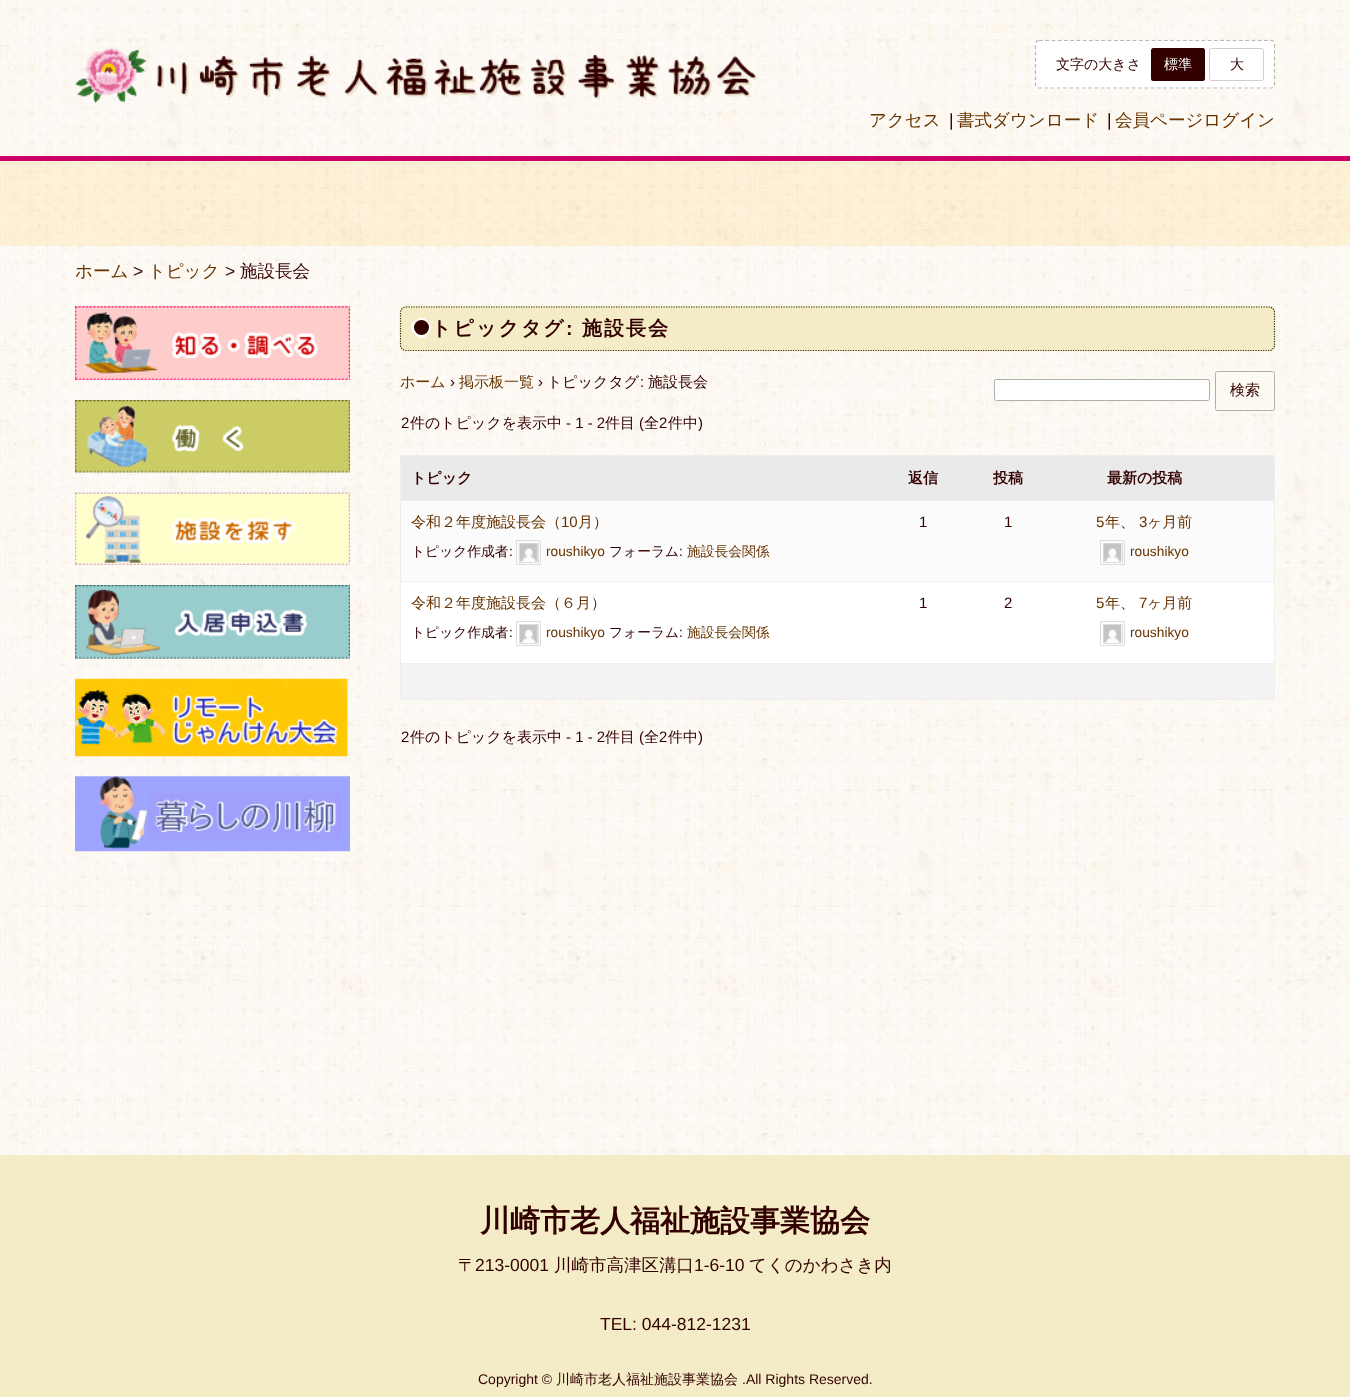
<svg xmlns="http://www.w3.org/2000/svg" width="1350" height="1397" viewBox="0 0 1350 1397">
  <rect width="100%" height="100%" fill="#fff"/>
  <image x="0" y="0" width="1350" height="1155" href="img/1.png"/>
  <image x="75" y="47" width="683" height="56" href="img/2.png"/>
  <rect x="1035" y="40" width="240" height="49" rx="4" fill="#fff"/>
  <path d="M1039 40.5H1271C1273 40.5 1274.5 42 1274.5 44V85C1274.5 86.5 1273 88 1271 88H1039C1037 88 1035.5 86.5 1035.5 85V44C1035.5 42 1037 40.5 1039 40.5Z" fill="none" stroke="#3300004d" stroke-width="1.2" stroke-dasharray="3.75 2.5"/>
  <rect x="1151" y="48" width="54" height="33" rx="2.5" fill="#300"/>
  <rect x="1151.5" y="48.5" width="53" height="32" rx="2" fill="none" stroke="#33000033"/>
  <rect x="1209.5" y="48.5" width="54" height="32" rx="2" fill="none" stroke="#d6cccc"/>
  <path d="M0 161h1350v85H0z" fill="#ffcc6633"/>
  <path d="M0 156h1350v5H0z" fill="#c06"/>
  <image x="75" y="306" width="275" height="74" href="img/3.png"/>
  <image x="75" y="400" width="275" height="73" href="img/4.png"/>
  <image x="75" y="492" width="275" height="73" href="img/5.png"/>
  <image x="75" y="585" width="275" height="74" href="img/6.png"/>
  <image x="75" y="678" width="273" height="79" href="img/7.png"/>
  <image x="75" y="776" width="275" height="76" href="img/8.png"/>
  <rect x="400" y="306" width="875" height="45" rx="6" fill="#f3ecc7"/>
  <path d="M406 307H1269C1272 307 1274.5 309.5 1274.5 312.5V345C1274.5 348 1272 350.5 1269 350.5H406C403 350.5 400.5 348 400.5 345V312.5C400.5 309.5 403 307 406 307Z" fill="none" stroke="#330" stroke-width="1.2" stroke-dasharray="1.25 1.25"/>
  <path d="M421.5 318C417.5 318 414 321.5 414 325.5C416 317.5 428.5 319 428.5 327.5C430 323 426.5 318 421.5 318Z" fill="#fff"/>
  <path d="M418.5 320C407.5 320 409.5 337 420 335C412 333.5 412 321.5 420 320ZM423.5 320H422.5C431 321.5 431 333.5 422.5 335C433 336.5 434 320 423.5 320Z" fill="#fff"/>
  <path d="M414 329.5C414 331.5 414.5 333 415.5 334.5C420 342 431 336.5 428.5 328.5C428 336.5 416.5 337.5 414 329.5Z" fill="#fff"/>
  <circle cx="421.5" cy="327.5" r="7.5" fill="#300"/>
  <rect x="994.5" y="379.5" width="215" height="21" rx="2" fill="#fff" stroke="#afafaf"/>
  <rect x="1215.5" y="371.5" width="59" height="39" rx="2" fill="#fcfaf1" stroke="#afafaf"/>
  <path d="M400.5 455.5h874v244H400.5z" fill="none" stroke="#eee"/>
  <path d="M401 457h873v43H401z" fill="#eaeaea"/>
  <path d="M401 456h873v1H401z" fill="#eee"/>
  <path d="M401 501h873v80H401z" fill="#fbfbfb"/>
  <path d="M401 500h873v1H401z" fill="#eee"/>
  <path d="M516.5 540.5h24v24H516.5z" fill="none" stroke="#ddd"/>
  <path d="M519.5 543.5h19v19H519.5z" fill="none" stroke="#ddd"/>
  <image x="520" y="543" width="18" height="19" href="img/9.png"/>
  <path d="M1100.5 540.5h24v24H1100.5z" fill="none" stroke="#ddd"/>
  <path d="M1103.5 543.5h19v19H1103.5z" fill="none" stroke="#ddd"/>
  <image x="1103" y="543" width="19" height="19" href="img/10.png"/>
  <path d="M401 582h873v81H401z" fill="#fff"/>
  <path d="M401 581h873v1H401z" fill="#eee"/>
  <path d="M516.5 621.5h24v24H516.5z" fill="none" stroke="#ddd"/>
  <path d="M519.5 624.5h19v19H519.5z" fill="none" stroke="#ddd"/>
  <image x="520" y="625" width="18" height="18" href="img/11.png"/>
  <path d="M1100.5 621.5h24v24H1100.5z" fill="none" stroke="#ddd"/>
  <path d="M1103.5 624.5h19v19H1103.5z" fill="none" stroke="#ddd"/>
  <image x="1103" y="625" width="19" height="18" href="img/12.png"/>
  <path d="M401 664h873v35H401z" fill="#f3f3f3"/>
  <path d="M401 663h873v1H401z" fill="#eee"/>
  <path d="M0 1155h1350v242H0z" fill="#f3ecc7"/>
  <text x="1056" y="69" font-family="WenQuanYi Zen Hei" font-size="14" font-weight="500" fill="#300">文字の大きさ</text>
  <text x="1164" y="69" font-family="WenQuanYi Zen Hei" font-size="14" font-weight="500" fill="#fff">標準</text>
  <text x="1230" y="69" font-family="WenQuanYi Zen Hei" font-size="14" font-weight="500" fill="#300">大</text>
  <text x="869" y="126" font-family="WenQuanYi Zen Hei" font-size="17.5" font-weight="500" fill="#630">アクセス</text>
  <text x="949" y="126" font-family="Liberation Sans" font-size="17.5" fill="#300">|</text>
  <text x="957" y="126" font-family="WenQuanYi Zen Hei" font-size="17.5" font-weight="500" fill="#630">書式ダウンロード</text>
  <text x="1107" y="126" font-family="Liberation Sans" font-size="17.5" fill="#300">|</text>
  <g font-family="WenQuanYi Zen Hei" font-size="17.5" font-weight="500" fill="#630">
    <text x="1115" y="126">会員ページログイン</text>
    <text x="75" y="277">ホーム</text>
  </g>
  <text x="133" y="277" font-family="Liberation Sans" font-size="17.5" fill="#300">&gt;</text>
  <text x="148" y="277" font-family="WenQuanYi Zen Hei" font-size="17.5" font-weight="500" fill="#630">トピック</text>
  <text x="225" y="277" font-family="Liberation Sans" font-size="17.5" fill="#300">&gt;</text>
  <text x="240" y="277" font-family="WenQuanYi Zen Hei" font-size="17.5" font-weight="500" fill="#300">施設長会</text>
  <text x="431" y="335" font-family="WenQuanYi Zen Hei" font-size="20" font-weight="bold" letter-spacing="2" fill="#300">トピックタグ</text>
  <text x="566" y="335" font-family="Liberation Sans" font-size="20" font-weight="bold" letter-spacing="2" fill="#300">:</text>
  <text x="582" y="335" font-family="WenQuanYi Zen Hei" font-size="20" font-weight="bold" letter-spacing="2" fill="#300">施設長会</text>
  <text x="400" y="387" font-family="WenQuanYi Zen Hei" font-size="15" font-weight="500" fill="#630">ホーム</text>
  <text x="450" y="387" font-family="Liberation Sans" font-size="15" fill="#300">›</text>
  <text x="459" y="387" font-family="WenQuanYi Zen Hei" font-size="15" font-weight="500" fill="#630">掲示板一覧</text>
  <text x="538" y="387" font-family="Liberation Sans" font-size="15" fill="#300">›</text>
  <text x="547" y="387" font-family="WenQuanYi Zen Hei" font-size="15" font-weight="500" fill="#300">トピックタグ</text>
  <text x="640" y="387" font-family="Liberation Sans" font-size="15" fill="#300">:</text>
  <g font-family="WenQuanYi Zen Hei" font-size="15" font-weight="500" fill="#300">
    <text x="648" y="387">施設長会</text>
    <text x="1230" y="395">検索</text>
  </g>
  <text x="401" y="428" font-family="Liberation Sans" font-size="15" fill="#300">2</text>
  <text x="410" y="428" font-family="WenQuanYi Zen Hei" font-size="15" font-weight="500" fill="#300">件のトピックを表示中</text>
  <text x="566" y="428" font-family="Liberation Sans" font-size="15" fill="#300">- 1 - 2</text>
  <text x="605" y="428" font-family="WenQuanYi Zen Hei" font-size="15" font-weight="500" fill="#300">件目</text>
  <text x="639" y="428" font-family="Liberation Sans" font-size="15" fill="#300">(</text>
  <text x="644" y="428" font-family="WenQuanYi Zen Hei" font-size="15" font-weight="500" fill="#300">全</text>
  <text x="659" y="428" font-family="Liberation Sans" font-size="15" fill="#300">2</text>
  <text x="668" y="428" font-family="WenQuanYi Zen Hei" font-size="15" font-weight="500" fill="#300">件中</text>
  <text x="698" y="428" font-family="Liberation Sans" font-size="15" fill="#300">)</text>
  <g font-family="WenQuanYi Zen Hei" font-size="15" font-weight="bold" fill="#300">
    <text x="411" y="483">トピック</text>
    <text x="908" y="483">返信</text>
    <text x="993" y="483">投稿</text>
    <text x="1107" y="483">最新の投稿</text>
  </g>
  <text x="411" y="527" font-family="WenQuanYi Zen Hei" font-size="15" font-weight="500" fill="#630">令和２年度施設長会（</text>
  <text x="561" y="527" font-family="Liberation Sans" font-size="15" fill="#630">10</text>
  <text x="578" y="527" font-family="WenQuanYi Zen Hei" font-size="15" font-weight="500" fill="#630">月）</text>
  <text x="411" y="556" font-family="WenQuanYi Zen Hei" font-size="13.75" font-weight="500" fill="#300">トピック作成者</text>
  <text x="509" y="556" font-family="Liberation Sans" font-size="13.75" fill="#300">:</text>
  <text x="546" y="556" font-family="Liberation Sans" font-size="13.75" fill="#630">roushikyo</text>
  <text x="609" y="556" font-family="WenQuanYi Zen Hei" font-size="13.75" font-weight="500" fill="#300">フォーラム</text>
  <text x="679" y="556" font-family="Liberation Sans" font-size="13.75" fill="#300">:</text>
  <text x="687" y="556" font-family="WenQuanYi Zen Hei" font-size="13.75" font-weight="500" fill="#630">施設長会関係</text>
  <g font-family="Liberation Sans" font-size="15" fill="#300">
    <text x="919" y="527">1</text>
    <text x="1004" y="527">1</text>
  </g>
  <text x="1096" y="527" font-family="Liberation Sans" font-size="15" fill="#630">5</text>
  <text x="1105" y="527" font-family="WenQuanYi Zen Hei" font-size="15" font-weight="500" fill="#630">年、</text>
  <text x="1139" y="527" font-family="Liberation Sans" font-size="15" fill="#630">3</text>
  <text x="1147" y="527" font-family="WenQuanYi Zen Hei" font-size="15" font-weight="500" fill="#630">ヶ月前</text>
  <text x="1130" y="556" font-family="Liberation Sans" font-size="13.75" fill="#630">roushikyo</text>
  <text x="411" y="608" font-family="WenQuanYi Zen Hei" font-size="15" font-weight="500" fill="#630">令和２年度施設長会（６月）</text>
  <text x="411" y="637" font-family="WenQuanYi Zen Hei" font-size="13.75" font-weight="500" fill="#300">トピック作成者</text>
  <text x="509" y="637" font-family="Liberation Sans" font-size="13.75" fill="#300">:</text>
  <text x="546" y="637" font-family="Liberation Sans" font-size="13.75" fill="#630">roushikyo</text>
  <text x="609" y="637" font-family="WenQuanYi Zen Hei" font-size="13.75" font-weight="500" fill="#300">フォーラム</text>
  <text x="679" y="637" font-family="Liberation Sans" font-size="13.75" fill="#300">:</text>
  <text x="687" y="637" font-family="WenQuanYi Zen Hei" font-size="13.75" font-weight="500" fill="#630">施設長会関係</text>
  <g font-family="Liberation Sans" font-size="15" fill="#300">
    <text x="919" y="608">1</text>
    <text x="1004" y="608">2</text>
  </g>
  <text x="1096" y="608" font-family="Liberation Sans" font-size="15" fill="#630">5</text>
  <text x="1105" y="608" font-family="WenQuanYi Zen Hei" font-size="15" font-weight="500" fill="#630">年、</text>
  <text x="1139" y="608" font-family="Liberation Sans" font-size="15" fill="#630">7</text>
  <text x="1147" y="608" font-family="WenQuanYi Zen Hei" font-size="15" font-weight="500" fill="#630">ヶ月前</text>
  <text x="1130" y="637" font-family="Liberation Sans" font-size="13.75" fill="#630">roushikyo</text>
  <text x="401" y="742" font-family="Liberation Sans" font-size="15" fill="#300">2</text>
  <text x="410" y="742" font-family="WenQuanYi Zen Hei" font-size="15" font-weight="500" fill="#300">件のトピックを表示中</text>
  <text x="566" y="742" font-family="Liberation Sans" font-size="15" fill="#300">- 1 - 2</text>
  <text x="605" y="742" font-family="WenQuanYi Zen Hei" font-size="15" font-weight="500" fill="#300">件目</text>
  <text x="639" y="742" font-family="Liberation Sans" font-size="15" fill="#300">(</text>
  <text x="644" y="742" font-family="WenQuanYi Zen Hei" font-size="15" font-weight="500" fill="#300">全</text>
  <text x="659" y="742" font-family="Liberation Sans" font-size="15" fill="#300">2</text>
  <text x="668" y="742" font-family="WenQuanYi Zen Hei" font-size="15" font-weight="500" fill="#300">件中</text>
  <text x="698" y="742" font-family="Liberation Sans" font-size="15" fill="#300">)</text>
  <text x="480" y="1231" font-family="WenQuanYi Zen Hei" font-size="30" font-weight="bold" fill="#300">川崎市老人福祉施設事業協会</text>
  <text x="458" y="1271" font-family="WenQuanYi Zen Hei" font-size="17.5" font-weight="500" fill="#300">〒</text>
  <text x="475" y="1271" font-family="Liberation Sans" font-size="17.5" fill="#300">213-0001</text>
  <text x="554" y="1271" font-family="WenQuanYi Zen Hei" font-size="17.5" font-weight="500" fill="#300">川崎市高津区溝口</text>
  <text x="694" y="1271" font-family="Liberation Sans" font-size="17.5" fill="#300">1-6-10</text>
  <text x="749" y="1271" font-family="WenQuanYi Zen Hei" font-size="17.5" font-weight="500" fill="#300">てくのかわさき内</text>
  <text x="600" y="1330" font-family="Liberation Sans" font-size="17.5" fill="#300">TEL: 044-812-1231</text>
  <text x="478" y="1384" font-family="Liberation Sans" font-size="14" fill="#300">Copyright ©</text>
  <text x="556" y="1384" font-family="WenQuanYi Zen Hei" font-size="14" font-weight="500" fill="#300">川崎市老人福祉施設事業協会</text>
  <text x="742" y="1384" font-family="Liberation Sans" font-size="14" fill="#300">.All Rights Reserved.</text>
</svg>
